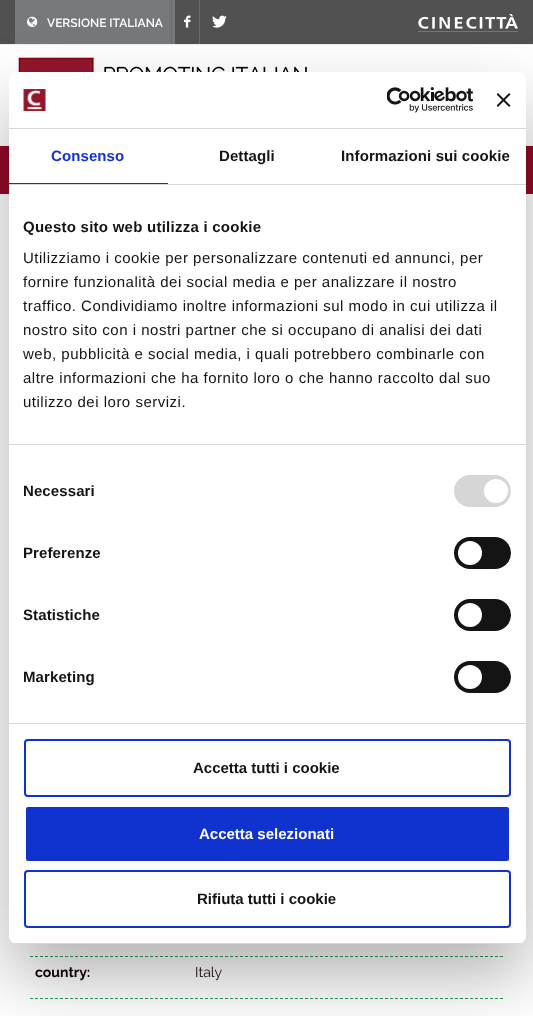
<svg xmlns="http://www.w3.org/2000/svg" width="533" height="1016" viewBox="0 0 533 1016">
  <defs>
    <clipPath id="clip1"><rect x="9" y="72" width="517" height="872" rx="8"/></clipPath>
  </defs>
  <rect width="100%" height="100%" fill="#fff"/>
  <path d="M0 0h533v44H0z" fill="#515151"/>
  <path d="M0 44h533v1H0z" fill="#eee"/>
  <path d="M15 0h160v44H15z" fill="#77787c"/>
  <image x="27" y="16" width="11" height="11" href="img/1.png"/>
  <path d="M171 0h1v44H171z" fill="#6a6b6d"/>
  <image x="184" y="15" width="7" height="13" href="img/2.png"/>
  <path d="M199 0h1v44H199z" fill="#6a6b6d"/>
  <image x="212" y="15" width="15" height="13" href="img/3.png"/>
  <image x="418" y="14" width="100" height="18" href="img/4.png"/>
  <path d="M0 145h533v1H0z" fill="#f5f5f5"/>
  <image x="16" y="57" width="342" height="16" href="img/5.png"/>
  <path d="M0 146h533v48H0z" fill="#910b26"/>
  <path d="M30 956.5H503" fill="none" stroke="#2a9c4e" stroke-dasharray="3 2"/>
  <path d="M30 998.5H503" fill="none" stroke="#2a9c4e" stroke-dasharray="3 2"/>
  <rect x="9" y="104" width="517" height="872" rx="8" fill="#0000004d" filter="blur(34px)"/>
  <rect x="9" y="72" width="517" height="872" rx="8" fill="#fff"/>
  <path d="M9 128h517v1H9z" fill="#d6d6d6"/>
  <image x="23" y="89" width="23" height="22" href="img/6.png"/>
  <image x="387" y="87" width="86" height="26" href="img/7.png"/>
  <image x="497" y="93" width="14" height="14" href="img/8.png"/>
  <path d="M9 184h517v1H9z" fill="#d6d6d6"/>
  <path d="M9 183h159v1H9z" fill="#1032cf"/>
  <path d="M9 444h517v1H9z" fill="#d6d6d6"/>
  <path d="M9 723h517v1H9z" fill="#d6d6d6"/>
  <rect x="454" y="475" width="57" height="32" rx="16" fill="#d6d6d6"/>
  <circle cx="496" cy="491" r="12" fill="#fff"/>
  <rect x="454" y="537" width="57" height="32" rx="16" fill="#141414"/>
  <circle cx="470" cy="553" r="12" fill="#fff"/>
  <rect x="454" y="599" width="57" height="32" rx="16" fill="#141414"/>
  <circle cx="470" cy="615" r="12" fill="#fff"/>
  <rect x="454" y="661" width="57" height="32" rx="16" fill="#141414"/>
  <circle cx="470" cy="677" r="12" fill="#fff"/>
  <g clip-path="url(#clip1)">
    <path d="M9 943h517v1H9z" fill="#d6d6d6"/>
  </g>
  <rect x="25" y="740" width="485" height="56" rx="3" fill="none" stroke="#1032cf" stroke-width="2"/>
  <rect x="25" y="806" width="485" height="56" rx="3" fill="#1032cf" stroke="#fff" stroke-width="2"/>
  <rect x="25" y="871" width="485" height="56" rx="3" fill="none" stroke="#1032cf" stroke-width="2"/>
  <text x="47" y="27" font-family="Raleway" font-size="12" font-weight="600" fill="#fff">VERSIONE ITALIANA</text>
  <text x="35" y="977" font-family="Raleway" font-size="14" font-weight="bold" fill="#130001">country:</text>
  <text x="195" y="977" font-family="Raleway" font-size="14" fill="#130001">Italy</text>
  <text x="51" y="161" font-family="Liberation Sans" font-size="15" font-weight="bold" letter-spacing="0.1" fill="#1032cf">Consenso</text>
  <g font-family="Liberation Sans" font-size="15" font-weight="bold" letter-spacing="0.1" fill="#141414">
    <text x="219" y="161">Dettagli</text>
    <text x="341" y="161">Informazioni sui cookie</text>
  </g>
  <text x="23" y="232" font-family="Liberation Sans" font-size="15" font-weight="bold" letter-spacing="0.25" fill="#141414">Questo sito web utilizza i cookie</text>
  <g font-family="Liberation Sans" font-size="15" letter-spacing="0.5" fill="#141414">
    <text x="23" y="263">Utilizziamo i cookie per personalizzare contenuti ed annunci, per</text>
    <text x="23" y="287">fornire funzionalità dei social media e per analizzare il nostro</text>
    <text x="23" y="311">traffico. Condividiamo inoltre informazioni sul modo in cui utilizza il</text>
    <text x="23" y="335">nostro sito con i nostri partner che si occupano di analisi dei dati</text>
    <text x="23" y="359">web, pubblicità e social media, i quali potrebbero combinarle con</text>
    <text x="23" y="383">altre informazioni che ha fornito loro o che hanno raccolto dal suo</text>
    <text x="23" y="407">utilizzo dei loro servizi.</text>
  </g>
  <g font-family="Liberation Sans" font-size="15" font-weight="bold" letter-spacing="0.1" fill="#141414">
    <text x="23" y="496">Necessari</text>
    <text x="23" y="558">Preferenze</text>
    <text x="23" y="620">Statistiche</text>
    <text x="23" y="682">Marketing</text>
  </g>
  <text x="193" y="773" font-family="Liberation Sans" font-size="15" font-weight="bold" fill="#141414">Accetta tutti i cookie</text>
  <text x="199" y="839" font-family="Liberation Sans" font-size="15" font-weight="bold" fill="#fff">Accetta selezionati</text>
  <text x="197" y="904" font-family="Liberation Sans" font-size="15" font-weight="bold" fill="#141414">Rifiuta tutti i cookie</text>
</svg>
